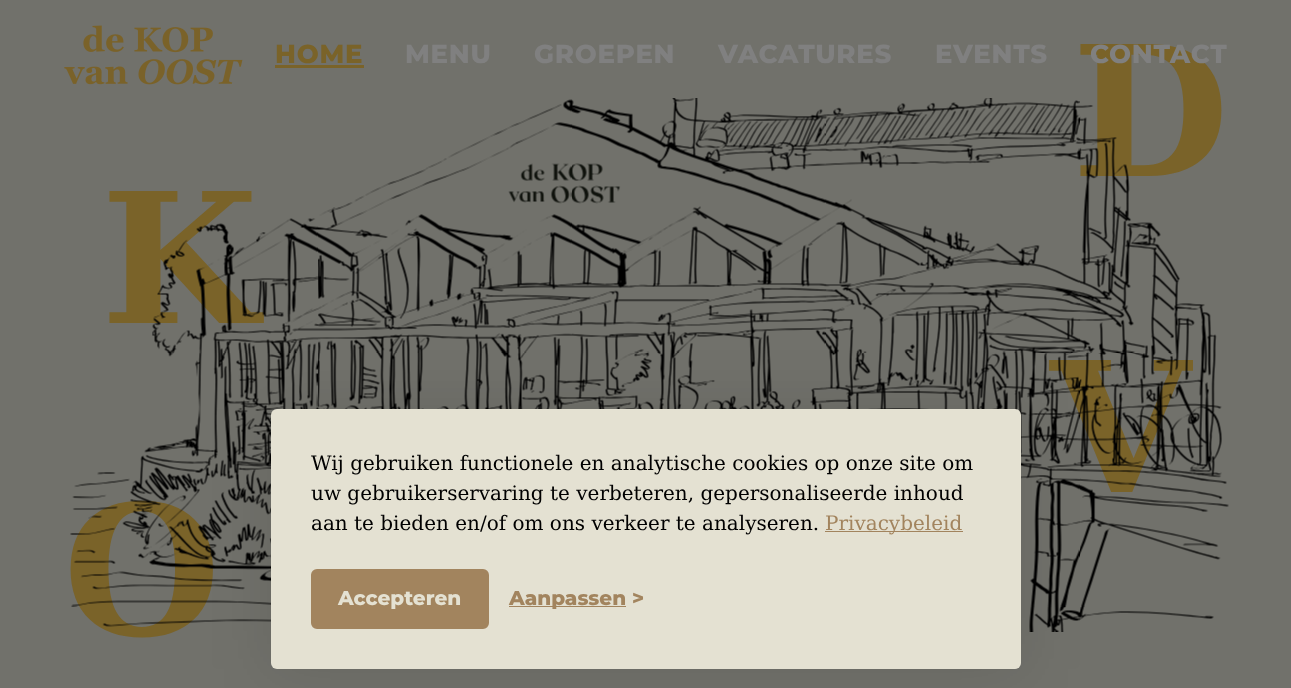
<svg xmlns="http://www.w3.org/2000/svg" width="1291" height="688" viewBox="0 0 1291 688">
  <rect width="100%" height="100%" fill="#71716b"/>
  <image x="64" y="25" width="179" height="60" href="img/1.png"/>
  <path d="M275 65h89v3H275z" fill="#7a6329"/>
  <g font-family="DejaVu Serif" font-size="181" font-weight="bold" fill="#7a6329">
    <text x="1072" y="176">D</text>
    <text x="101" y="323">K</text>
    <text x="1050" y="492">V</text>
    <text x="63" y="635">O</text>
  </g>
  <text x="275" y="63" font-family="Montserrat" font-size="26" font-weight="100" letter-spacing="0.75" fill="#7a6329">HOME</text>
  <g font-family="Montserrat" font-size="26" font-weight="100" letter-spacing="0.75" fill="#808080">
    <text x="405" y="63">MENU</text>
    <text x="534" y="63">GROEPEN</text>
    <text x="718" y="63">VACATURES</text>
    <text x="935" y="63">EVENTS</text>
    <text x="1090" y="63">CONTACT</text>
  </g>
  <image x="70" y="98" width="1159" height="534" href="img/2.png"/>
  <rect x="271" y="409" width="750" height="260" rx="6" fill="#0000001a" filter="blur(31px)"/>
  <rect x="271" y="409" width="750" height="260" rx="6" fill="#e4e1d2"/>
  <g font-family="DejaVu Serif" font-size="20" fill="#000">
    <text x="311" y="470">Wij gebruiken functionele en analytische cookies op onze site om</text>
    <text x="311" y="500">uw gebruikerservaring te verbeteren, gepersonaliseerde inhoud</text>
    <text x="311" y="530">aan te bieden en/of om ons verkeer te analyseren.</text>
  </g>
  <path d="M825 531h138v1H825z" fill="#a2845e"/>
  <text x="825" y="530" font-family="DejaVu Serif" font-size="20" fill="#a2845e">Privacybeleid</text>
  <rect x="312.5" y="570.5" width="175" height="57" rx="4.5" fill="#a2845e" stroke="#a2845e" stroke-width="3"/>
  <text x="338" y="605" font-family="Montserrat" font-size="20" font-weight="100" fill="#e4e1d2">Accepteren</text>
  <path d="M509 606h117v1H509z" fill="#a2845e"/>
  <g font-family="Montserrat" font-size="20" font-weight="100" fill="#a2845e">
    <text x="509" y="605">Aanpassen</text>
    <text x="632" y="605">&gt;</text>
  </g>
</svg>
